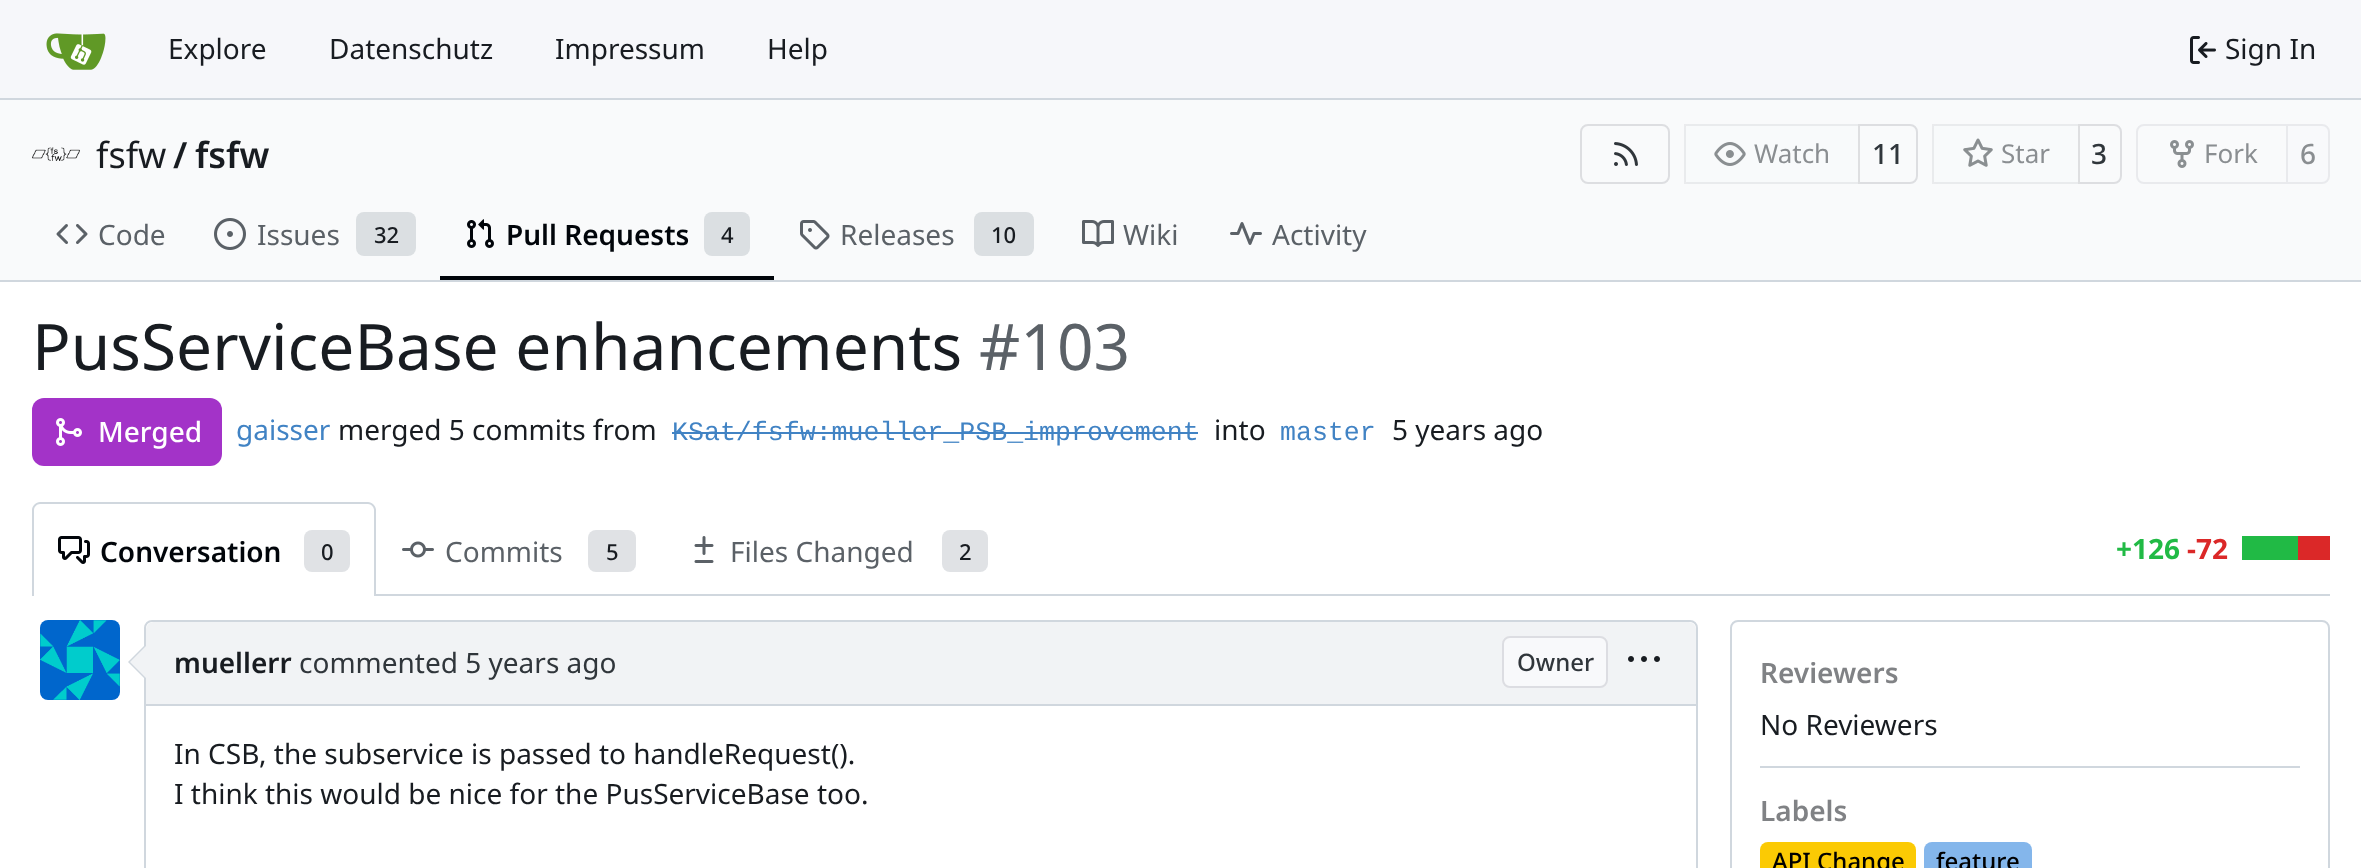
<svg xmlns="http://www.w3.org/2000/svg" width="2361" height="868" viewBox="0 0 2361 868">
  <rect width="100%" height="100%" fill="#fff"/>
  <path d="M0 0h2361v98H0z" fill="#f6f7fa"/>
  <path d="M0 98h2361v2H0z" fill="#d0d7de"/>
  <image x="46" y="33" width="60" height="37" href="img/1.png"/>
  <image x="2190" y="36" width="26" height="28" href="img/2.png"/>
  <path d="M0 100h2361v180H0z" fill="#f9fafb"/>
  <image x="32" y="147" width="48" height="14" href="img/3.png"/>
  <rect x="1581" y="125" width="88" height="58" rx="7" fill="none" stroke="#dddee1" stroke-width="2"/>
  <image x="1614" y="142" width="24" height="24" href="img/4.png"/>
  <path d="M1859 125H1910C1914 125 1917 128 1917 132V176C1917 180 1914 183 1910 183H1859Z" fill="none" stroke="#dddee1" stroke-width="2"/>
  <path d="M1692 124H1860V184H1692C1687.5 184 1684 180.5 1684 176V132C1684 127.5 1687.5 124 1692 124Z" fill="#f8f9fb8c"/>
  <path d="M1685 125h174v58H1685z" fill="none" stroke="#0000170f" stroke-width="2"/>
  <image x="1714" y="142" width="32" height="24" href="img/5.png"/>
  <path d="M2079 125H2114C2118 125 2121 128 2121 132V176C2121 180 2118 183 2114 183H2079Z" fill="none" stroke="#dddee1" stroke-width="2"/>
  <path d="M1940 124H2080V184H1940C1935.5 184 1932 180.5 1932 176V132C1932 127.5 1935.5 124 1940 124Z" fill="#f8f9fb8c"/>
  <path d="M1933 125h146v58H1933z" fill="none" stroke="#0000170f" stroke-width="2"/>
  <image x="1963" y="138" width="30" height="29" href="img/6.png"/>
  <path d="M2144 125H2287V183H2144C2140 183 2137 180 2137 176V132C2137 128 2140 125 2144 125Z" fill="none" stroke="#e9eaed" stroke-width="2"/>
  <image x="2170" y="140" width="24" height="28" href="img/7.png"/>
  <path d="M2287 125H2322C2326 125 2329 128 2329 132V176C2329 180 2326 183 2322 183H2287Z" fill="#f8f9fb" stroke="#e9eaed" stroke-width="2"/>
  <image x="56" y="224" width="32" height="20" href="img/8.png"/>
  <image x="214" y="218" width="32" height="32" href="img/9.png"/>
  <rect x="356" y="212" width="60" height="44" rx="8" fill="#dbdfe2"/>
  <path d="M440 276h334v4H440z" fill="#01050a"/>
  <image x="467" y="219" width="27" height="29" href="img/10.png"/>
  <rect x="704" y="212" width="46" height="44" rx="8" fill="#dbdfe2"/>
  <image x="800" y="220" width="30" height="30" href="img/11.png"/>
  <rect x="974" y="212" width="60" height="44" rx="8" fill="#dbdfe2"/>
  <image x="1082" y="220" width="32" height="27" href="img/12.png"/>
  <image x="1230" y="222" width="32" height="23" href="img/13.png"/>
  <path d="M0 280h2361v2H0z" fill="#d0d7de"/>
  <rect x="32" y="398" width="190" height="68" rx="12" fill="#a333c8"/>
  <image x="56" y="418" width="26" height="28" href="img/14.png"/>
  <path d="M672 432h526v2H672z" fill="#4183c4"/>
  <path d="M40 502C36 502 32 506 32 510V596H34V510C34 507 37 504 40 504H368C371 504 374 507 374 510V596H376V510C376 506 372 502 368 502Z" fill="#d0d7de"/>
  <image x="58" y="536" width="32" height="28" href="img/15.png"/>
  <rect x="304" y="530" width="46" height="42" rx="8" fill="#e0e2e5"/>
  <image x="402" y="541" width="32" height="17" href="img/16.png"/>
  <rect x="588" y="530" width="48" height="42" rx="8" fill="#e0e2e5"/>
  <image x="694" y="536" width="20" height="27" href="img/17.png"/>
  <rect x="942" y="530" width="46" height="42" rx="8" fill="#e0e2e5"/>
  <path d="M2298 536h32v24H2298z" fill="#db2828"/>
  <path d="M2242 536h56v24H2242z" fill="#21ba45"/>
  <path d="M376 594h1954v2H376z" fill="#d0d7de"/>
  <image x="40" y="620" width="80" height="80" href="img/18.png"/>
  <rect x="145" y="621" width="1552" height="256" rx="7" fill="none" stroke="#d0d7de" stroke-width="2"/>
  <path d="M154 622H1688C1692.5 622 1696 625.5 1696 630V704H146V630C146 625.5 149.5 622 154 622Z" fill="#f1f3f5"/>
  <path d="M146 704h1550v2H146z" fill="#d0d7de"/>
  <path d="M146 644V680L128 662Z" fill="#d0d7de"/>
  <path d="M146 646V678L130 662Z" fill="#f1f3f5"/>
  <rect x="1502" y="636" width="106" height="52" rx="8" fill="#f8f9fb"/>
  <rect x="1503" y="637" width="104" height="50" rx="7" fill="none" stroke="#0000171c" stroke-width="2"/>
  <image x="1628" y="656" width="32" height="6" href="img/19.png"/>
  <rect x="1731" y="621" width="598" height="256" rx="7" fill="none" stroke="#d0d7de" stroke-width="2"/>
  <path d="M1760 766h540v2H1760z" fill="#d0d7de"/>
  <rect x="1760" y="842" width="156" height="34" rx="8" fill="#fbca04"/>
  <rect x="1924" y="842" width="108" height="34" rx="8" fill="#84b6eb"/>
  <g font-family="Noto Sans" font-size="28" fill="#181c21">
    <text x="168" y="59">Explore</text>
    <text x="329" y="59">Datenschutz</text>
    <text x="555" y="59">Impressum</text>
    <text x="767" y="59">Help</text>
    <text x="2225" y="59">Sign In</text>
  </g>
  <text x="96" y="168" font-family="Noto Sans" font-size="36" fill="#181c21">fsfw</text>
  <g font-family="Noto Sans" font-size="36" font-weight="600" fill="#181c21">
    <text x="173" y="168">/</text>
    <text x="195" y="168">fsfw</text>
  </g>
  <text x="1754" y="163" font-family="Noto Sans" font-size="26" fill="#8a8e91">Watch</text>
  <text x="1872" y="164" font-family="Noto Sans" font-size="28" font-weight="500" fill="#30363b">11</text>
  <text x="2001" y="163" font-family="Noto Sans" font-size="26" fill="#8a8e91">Star</text>
  <text x="2091" y="164" font-family="Noto Sans" font-size="28" font-weight="500" fill="#30363b">3</text>
  <text x="2204" y="163" font-family="Noto Sans" font-size="26" fill="#8a8e91">Fork</text>
  <text x="2300" y="164" font-family="Noto Sans" font-size="28" font-weight="500" fill="#8a8e91">6</text>
  <g font-family="Noto Sans" font-size="28" fill="#5b6167">
    <text x="98" y="245">Code</text>
    <text x="257" y="245">Issues</text>
  </g>
  <text x="374" y="243" font-family="Noto Sans" font-size="22" font-weight="500" fill="#181c21">32</text>
  <text x="506" y="245" font-family="Noto Sans" font-size="28" font-weight="600" fill="#01050a">Pull Requests</text>
  <text x="721" y="243" font-family="Noto Sans" font-size="22" font-weight="500" fill="#181c21">4</text>
  <text x="840" y="245" font-family="Noto Sans" font-size="28" fill="#5b6167">Releases</text>
  <text x="991" y="243" font-family="Noto Sans" font-size="22" font-weight="500" fill="#181c21">10</text>
  <g font-family="Noto Sans" font-size="28" fill="#5b6167">
    <text x="1123" y="245">Wiki</text>
    <text x="1272" y="245">Activity</text>
  </g>
  <text x="32" y="370" font-family="Noto Sans" font-size="64" fill="#181c21">PusServiceBase enhancements</text>
  <text x="979" y="370" font-family="Noto Sans" font-size="64" fill="#5b6167">#103</text>
  <text x="98" y="442" font-family="Noto Sans" font-size="28" font-weight="500" fill="#fff">Merged</text>
  <text x="236" y="440" font-family="Noto Sans" font-size="28" fill="#4183c4">gaisser</text>
  <text x="338" y="440" font-family="Noto Sans" font-size="28" fill="#181c21">merged 5 commits from</text>
  <text x="672" y="440" font-family="Liberation Mono" font-size="26.6" fill="#4183c4">KSat/fsfw:mueller_PSB_improvement</text>
  <text x="1214" y="440" font-family="Noto Sans" font-size="28" fill="#181c21">into</text>
  <text x="1280" y="440" font-family="Liberation Mono" font-size="26.6" fill="#4183c4">master</text>
  <text x="1392" y="440" font-family="Noto Sans" font-size="28" fill="#181c21">5 years ago</text>
  <text x="100" y="562" font-family="Noto Sans" font-size="28" font-weight="600" fill="#01050a">Conversation</text>
  <text x="321" y="560" font-family="Noto Sans" font-size="22" font-weight="500" fill="#181c21">0</text>
  <text x="445" y="562" font-family="Noto Sans" font-size="28" fill="#5b6167">Commits</text>
  <text x="606" y="560" font-family="Noto Sans" font-size="22" font-weight="500" fill="#181c21">5</text>
  <text x="730" y="562" font-family="Noto Sans" font-size="28" fill="#5b6167">Files Changed</text>
  <text x="959" y="560" font-family="Noto Sans" font-size="22" font-weight="500" fill="#181c21">2</text>
  <text x="2116" y="559" font-family="Noto Sans" font-size="28" font-weight="bold" fill="#21ba45">+126</text>
  <text x="2187" y="559" font-family="Noto Sans" font-size="28" font-weight="bold" fill="#db2828">-72</text>
  <text x="174" y="673" font-family="Noto Sans" font-size="28" font-weight="600" fill="#181c21">muellerr</text>
  <text x="299" y="673" font-family="Noto Sans" font-size="28" fill="#30363b">commented 5 years ago</text>
  <text x="1517" y="671" font-family="Noto Sans" font-size="24" font-weight="500" fill="#30363b">Owner</text>
  <g font-family="Noto Sans" font-size="28" fill="#181c21">
    <text x="174" y="764">In CSB, the subservice is passed to handleRequest().</text>
    <text x="174" y="804">I think this would be nice for the PusServiceBase too.</text>
  </g>
  <text x="1760" y="683" font-family="Noto Sans" font-size="28" font-weight="600" fill="#808285">Reviewers</text>
  <text x="1760" y="735" font-family="Noto Sans" font-size="28" fill="#181c21">No Reviewers</text>
  <text x="1760" y="821" font-family="Noto Sans" font-size="28" font-weight="600" fill="#808285">Labels</text>
  <g font-family="Noto Sans" font-size="24" font-weight="500" fill="#000">
    <text x="1772" y="870">API Change</text>
    <text x="1936" y="870">feature</text>
  </g>
</svg>
